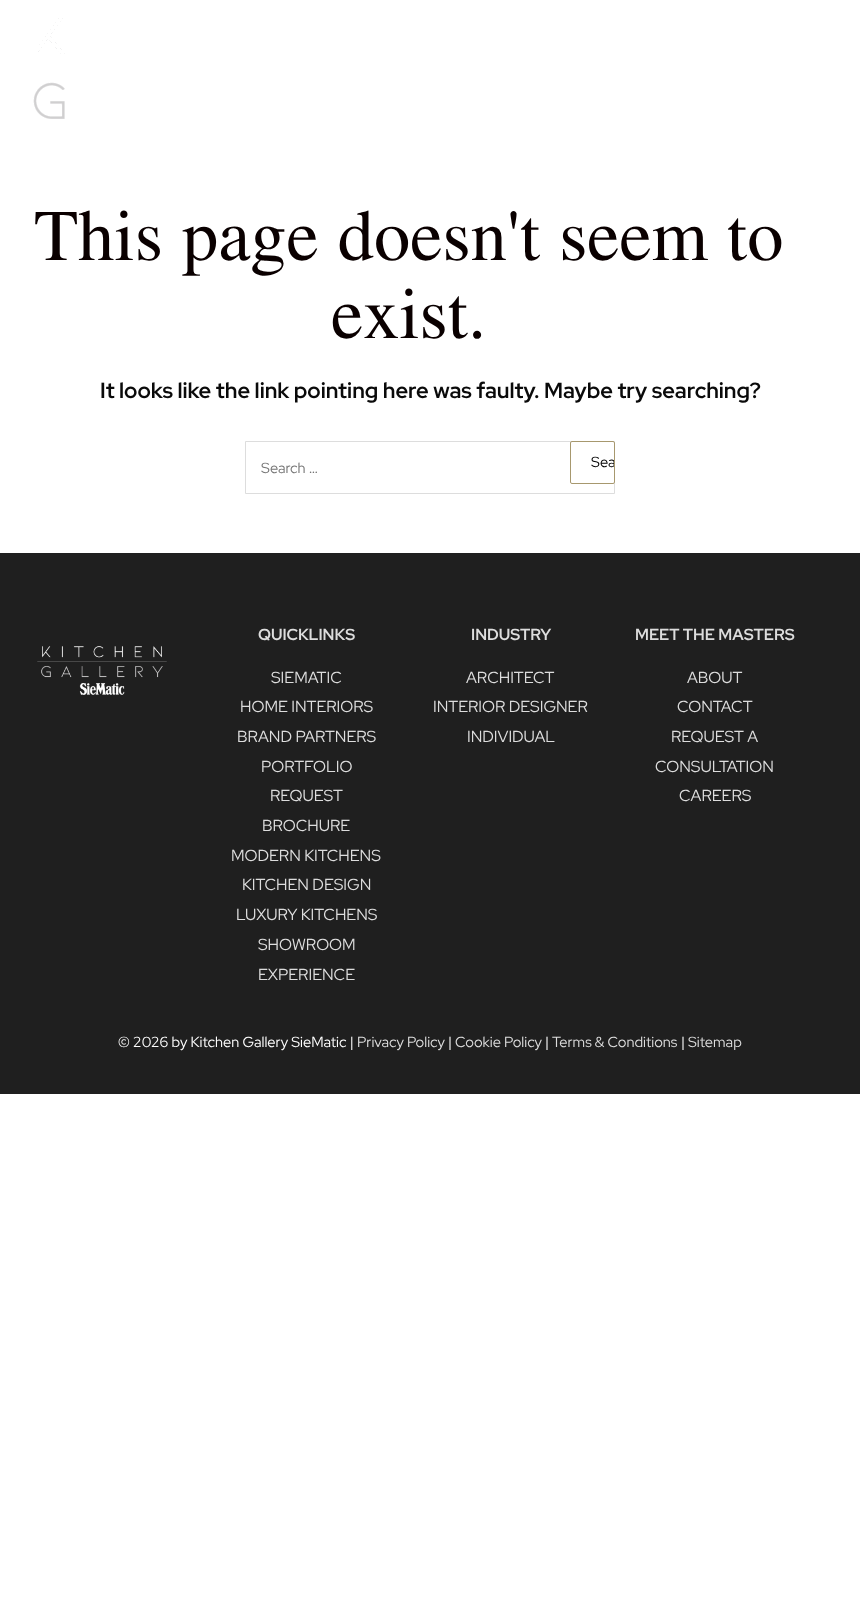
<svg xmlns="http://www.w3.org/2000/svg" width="860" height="1605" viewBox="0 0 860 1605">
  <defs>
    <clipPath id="clip1"><rect x="571" y="442" width="43" height="41" rx="1"/></clipPath>
  </defs>
  <rect width="100%" height="100%" fill="#fff"/>
  <image x="33" y="18" width="32" height="101" href="img/1.png"/>
  <path d="M245.5 441.5h369v52H245.5z" fill="none" stroke="#ddd"/>
  <rect x="570.5" y="441.5" width="44" height="42" rx="1.5" fill="#fff" stroke="#a7986e"/>
  <path d="M0 553h860v541H0z" fill="#1f1f1f"/>
  <image x="37" y="646" width="130" height="49" href="img/2.png"/>
  <g font-family="Jomolhari" font-size="65" fill="#0a0000">
    <text x="34" y="260">This page doesn't seem to</text>
    <text x="331" y="338">exist.</text>
  </g>
  <text x="100" y="398" font-family="Red Hat Display" font-size="21.9" font-weight="bold" fill="#0a0a0a">It looks like the link pointing here was faulty. Maybe try searching?</text>
  <text x="261" y="473" font-family="Red Hat Display" font-size="14.6" fill="#757575">Search …</text>
  <g clip-path="url(#clip1)">
    <text x="591" y="467" font-family="Red Hat Display" font-size="14.6" fill="#000">Sea</text>
  </g>
  <text x="258" y="640" font-family="Red Hat Display" font-size="16" font-weight="bold" fill="#ddd">QUICKLINKS</text>
  <g font-family="Red Hat Display" font-size="16" fill="#ddd">
    <text x="271" y="683">SIEMATIC</text>
    <text x="240" y="712">HOME INTERIORS</text>
    <text x="237" y="742">BRAND PARTNERS</text>
    <text x="261" y="772">PORTFOLIO</text>
    <text x="270" y="801">REQUEST</text>
    <text x="262" y="831">BROCHURE</text>
    <text x="231" y="861">MODERN KITCHENS</text>
    <text x="242" y="890">KITCHEN DESIGN</text>
    <text x="236" y="920">LUXURY KITCHENS</text>
    <text x="258" y="950">SHOWROOM</text>
    <text x="258" y="980">EXPERIENCE</text>
  </g>
  <text x="471" y="640" font-family="Red Hat Display" font-size="16" font-weight="bold" fill="#ddd">INDUSTRY</text>
  <g font-family="Red Hat Display" font-size="16" fill="#ddd">
    <text x="466" y="683">ARCHITECT</text>
    <text x="433" y="712">INTERIOR DESIGNER</text>
    <text x="467" y="742">INDIVIDUAL</text>
  </g>
  <text x="635" y="640" font-family="Red Hat Display" font-size="16" font-weight="bold" fill="#ddd">MEET THE MASTERS</text>
  <g font-family="Red Hat Display" font-size="16" fill="#ddd">
    <text x="687" y="683">ABOUT</text>
    <text x="677" y="712">CONTACT</text>
    <text x="671" y="742">REQUEST A</text>
    <text x="655" y="772">CONSULTATION</text>
    <text x="679" y="801">CAREERS</text>
  </g>
  <text x="118" y="1047" font-family="Red Hat Display" font-size="14.6" fill="#fff">© 2026 by Kitchen Gallery SieMatic |</text>
  <text x="357" y="1047" font-family="Red Hat Display" font-size="14.6" fill="#ddd">Privacy Policy</text>
  <text x="448" y="1047" font-family="Red Hat Display" font-size="14.6" fill="#fff">|</text>
  <text x="455" y="1047" font-family="Red Hat Display" font-size="14.6" fill="#ddd">Cookie Policy</text>
  <text x="545" y="1047" font-family="Red Hat Display" font-size="14.6" fill="#fff">|</text>
  <text x="552" y="1047" font-family="Red Hat Display" font-size="14.6" fill="#ddd">Terms &amp; Conditions</text>
  <text x="681" y="1047" font-family="Red Hat Display" font-size="14.6" fill="#fff">|</text>
  <text x="688" y="1047" font-family="Red Hat Display" font-size="14.6" fill="#ddd">Sitemap</text>
</svg>
